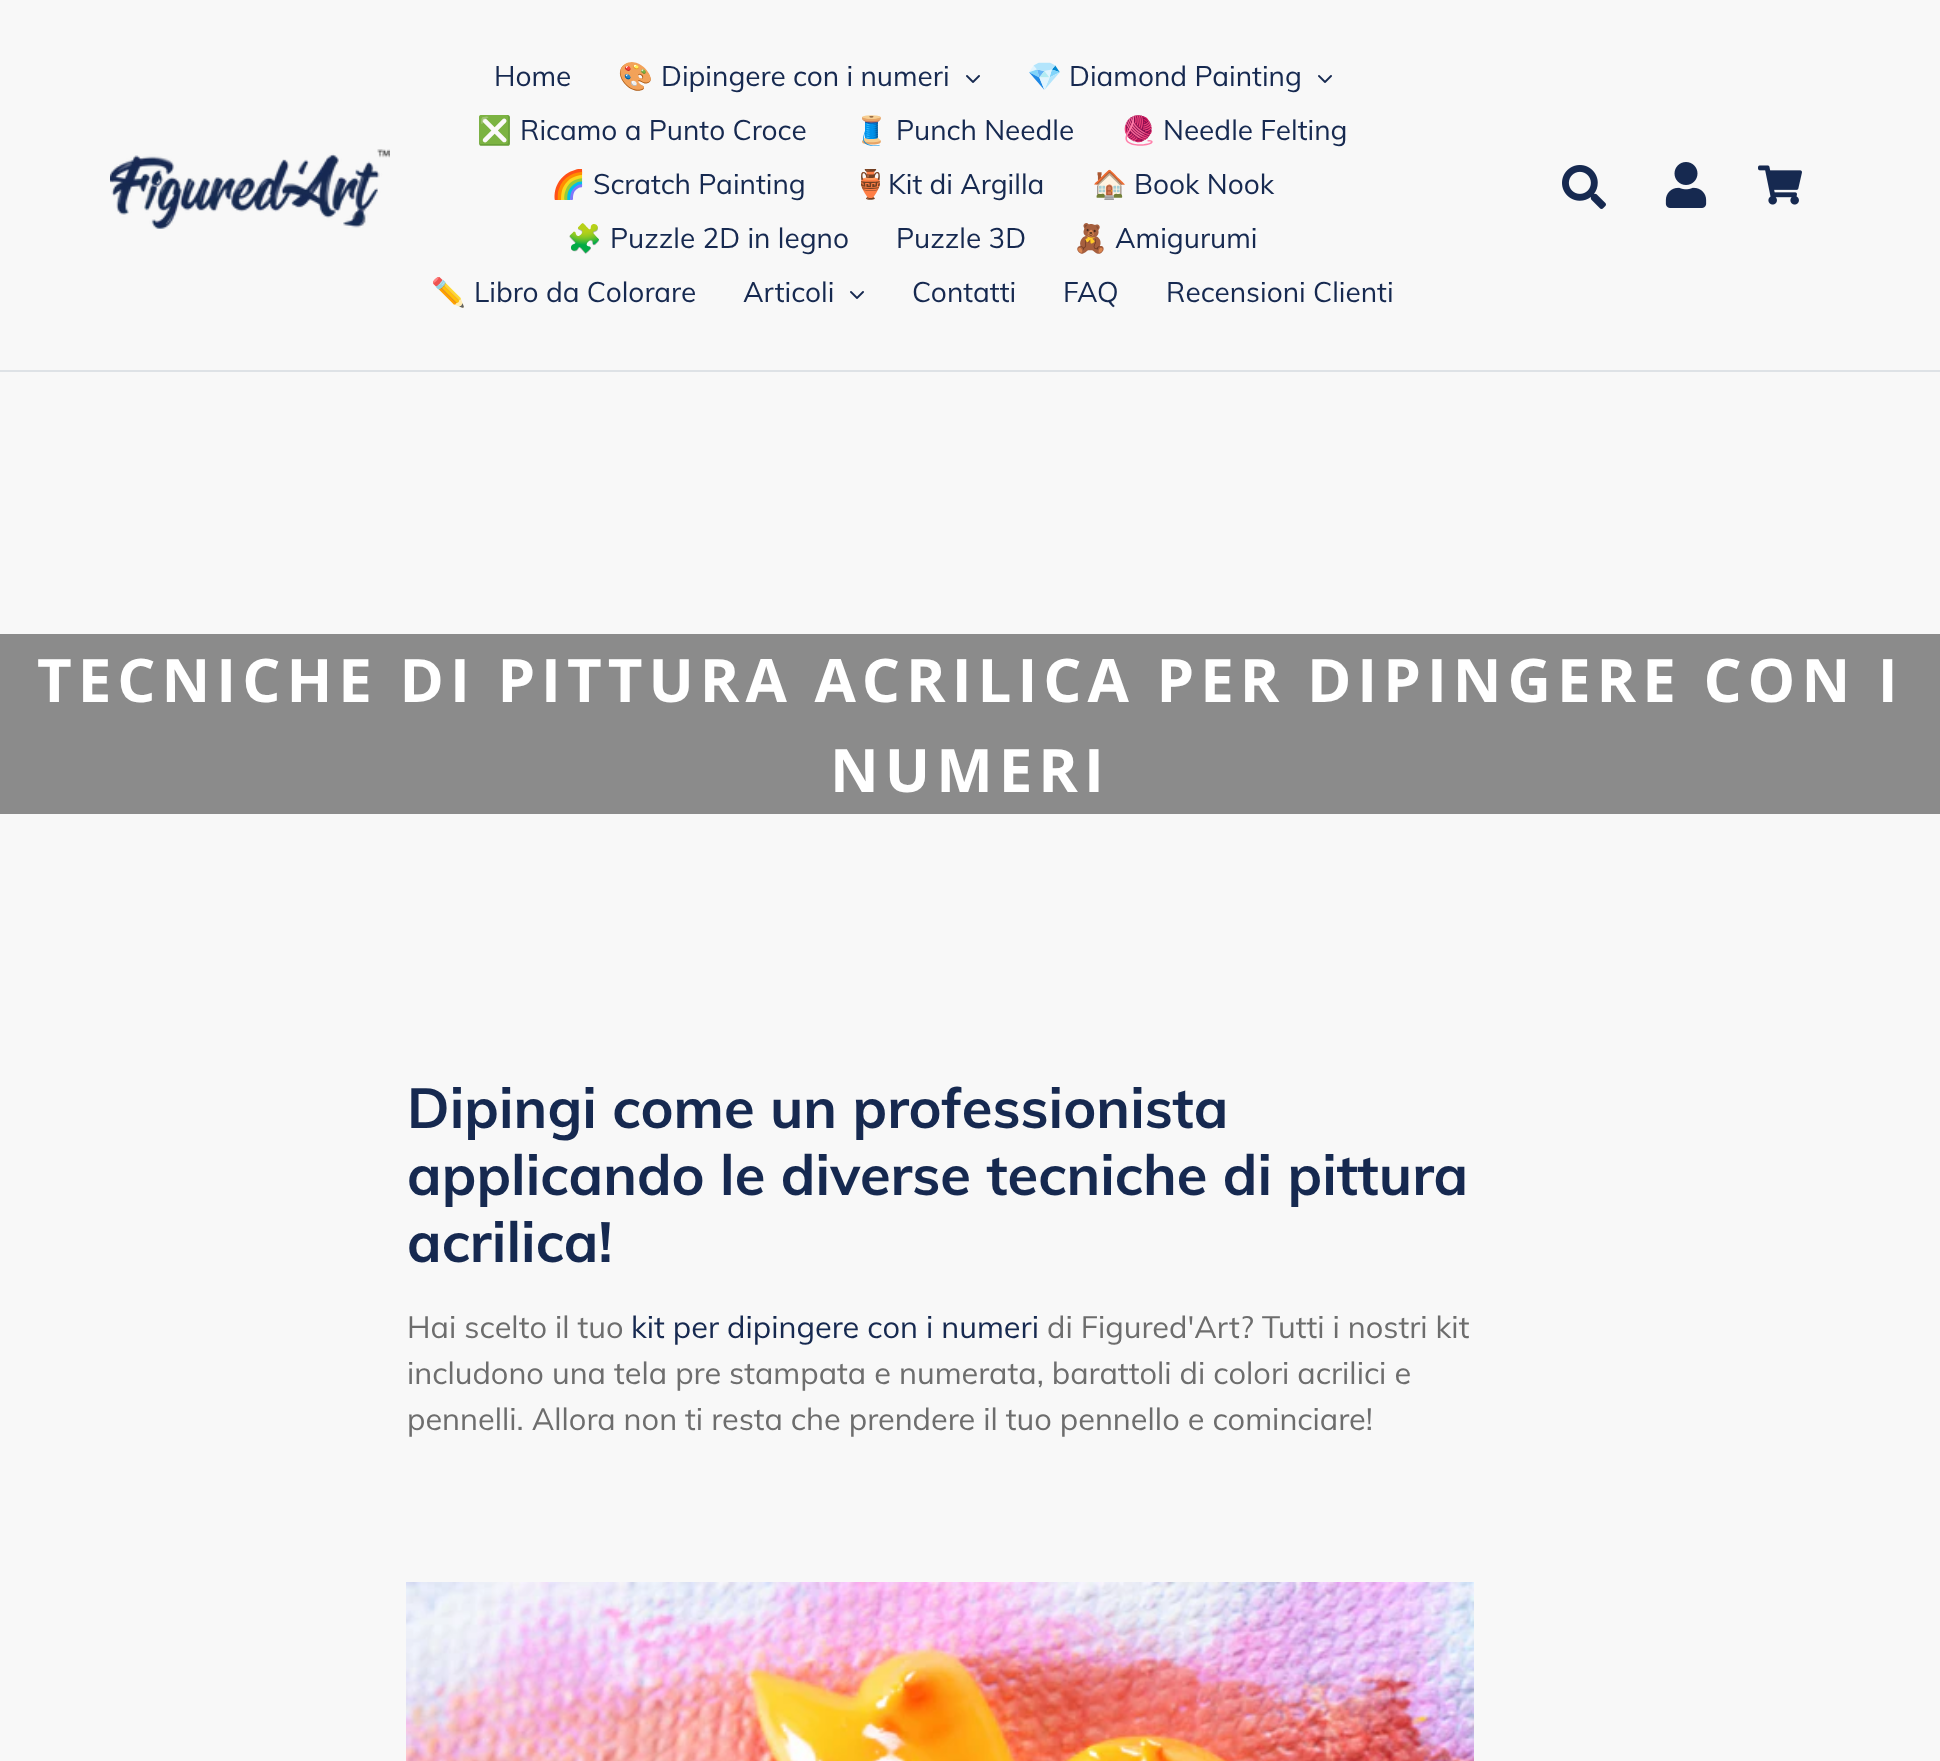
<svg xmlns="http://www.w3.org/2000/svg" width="1940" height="1761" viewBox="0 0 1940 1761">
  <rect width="100%" height="100%" fill="#f8f8f8"/>
  <path d="M0 370h1940v2H0z" fill="#dee2e6"/>
  <image x="110" y="149" width="280" height="80" href="img/1.png"/>
  <image x="966" y="75" width="14" height="8" href="img/2.png"/>
  <image x="1318" y="75" width="14" height="8" href="img/2.png"/>
  <image x="850" y="291" width="14" height="8" href="img/2.png"/>
  <image x="1562" y="165" width="44" height="44" href="img/3.png"/>
  <image x="1665" y="162" width="42" height="46" href="img/4.png"/>
  <image x="1758" y="165" width="44" height="40" href="img/5.png"/>
  <path d="M0 634h1940v180H0z" fill="#8b8b8b"/>
  <image x="406" y="1582" width="1068" height="179" href="img/6.png"/>
  <text x="494" y="86" font-family="Muli" font-size="28" fill="#162950">Home</text>
  <text x="618" y="86" font-family="Noto Color Emoji" font-size="28" fill="#162950">🎨</text>
  <text x="661" y="86" font-family="Muli" font-size="28" fill="#162950">Dipingere con i numeri</text>
  <text x="1027" y="86" font-family="Noto Color Emoji" font-size="28" fill="#162950">💎</text>
  <text x="1069" y="86" font-family="Muli" font-size="28" fill="#162950">Diamond Painting</text>
  <text x="477" y="140" font-family="Noto Color Emoji" font-size="28" fill="#162950">❎</text>
  <text x="520" y="140" font-family="Muli" font-size="28" fill="#162950">Ricamo a Punto Croce</text>
  <text x="854" y="140" font-family="Noto Color Emoji" font-size="28" fill="#162950">🧵</text>
  <text x="896" y="140" font-family="Muli" font-size="28" fill="#162950">Punch Needle</text>
  <text x="1121" y="140" font-family="Noto Color Emoji" font-size="28" fill="#162950">🧶</text>
  <text x="1163" y="140" font-family="Muli" font-size="28" fill="#162950">Needle Felting</text>
  <text x="551" y="194" font-family="Noto Color Emoji" font-size="28" fill="#162950">🌈</text>
  <text x="593" y="194" font-family="Muli" font-size="28" fill="#162950">Scratch Painting</text>
  <text x="853" y="194" font-family="Noto Color Emoji" font-size="28" fill="#162950">🏺</text>
  <text x="888" y="194" font-family="Muli" font-size="28" fill="#162950">Kit di Argilla</text>
  <text x="1092" y="194" font-family="Noto Color Emoji" font-size="28" fill="#162950">🏠</text>
  <text x="1134" y="194" font-family="Muli" font-size="28" fill="#162950">Book Nook</text>
  <text x="567" y="248" font-family="Noto Color Emoji" font-size="28" fill="#162950">🧩</text>
  <g font-family="Muli" font-size="28" fill="#162950">
    <text x="610" y="248">Puzzle 2D in legno</text>
    <text x="896" y="248">Puzzle 3D</text>
  </g>
  <text x="1073" y="248" font-family="Noto Color Emoji" font-size="28" fill="#162950">🧸</text>
  <text x="1115" y="248" font-family="Muli" font-size="28" fill="#162950">Amigurumi</text>
  <text x="431" y="302" font-family="Noto Color Emoji" font-size="28" fill="#162950">✏️</text>
  <g font-family="Muli" font-size="28" fill="#162950">
    <text x="474" y="302">Libro da Colorare</text>
    <text x="743" y="302">Articoli</text>
    <text x="912" y="302">Contatti</text>
    <text x="1063" y="302">FAQ</text>
    <text x="1166" y="302">Recensioni Clienti</text>
  </g>
  <g font-family="Open Sans" font-size="60" font-weight="bold" letter-spacing="6" fill="#fff">
    <text x="37" y="702">TECNICHE DI PITTURA ACRILICA PER DIPINGERE CON I</text>
    <text x="830" y="792">NUMERI</text>
  </g>
  <g font-family="Muli" font-size="56" font-weight="bold" fill="#162950">
    <text x="407" y="1128">Dipingi come un professionista</text>
    <text x="407" y="1195">applicando le diverse tecniche di pittura</text>
    <text x="407" y="1262">acrilica!</text>
  </g>
  <text x="407" y="1338" font-family="Muli" font-size="30.7" fill="#6d6d6d">Hai scelto il tuo</text>
  <text x="631" y="1338" font-family="Muli" font-size="30.7" fill="#162950">kit per dipingere con i numeri</text>
  <g font-family="Muli" font-size="30.7" fill="#6d6d6d">
    <text x="1047" y="1338">di Figured'Art? Tutti i nostri kit</text>
    <text x="407" y="1384">includono una tela pre stampata e numerata, barattoli di colori acrilici e</text>
    <text x="407" y="1430">pennelli. Allora non ti resta che prendere il tuo pennello e cominciare!</text>
  </g>
</svg>
